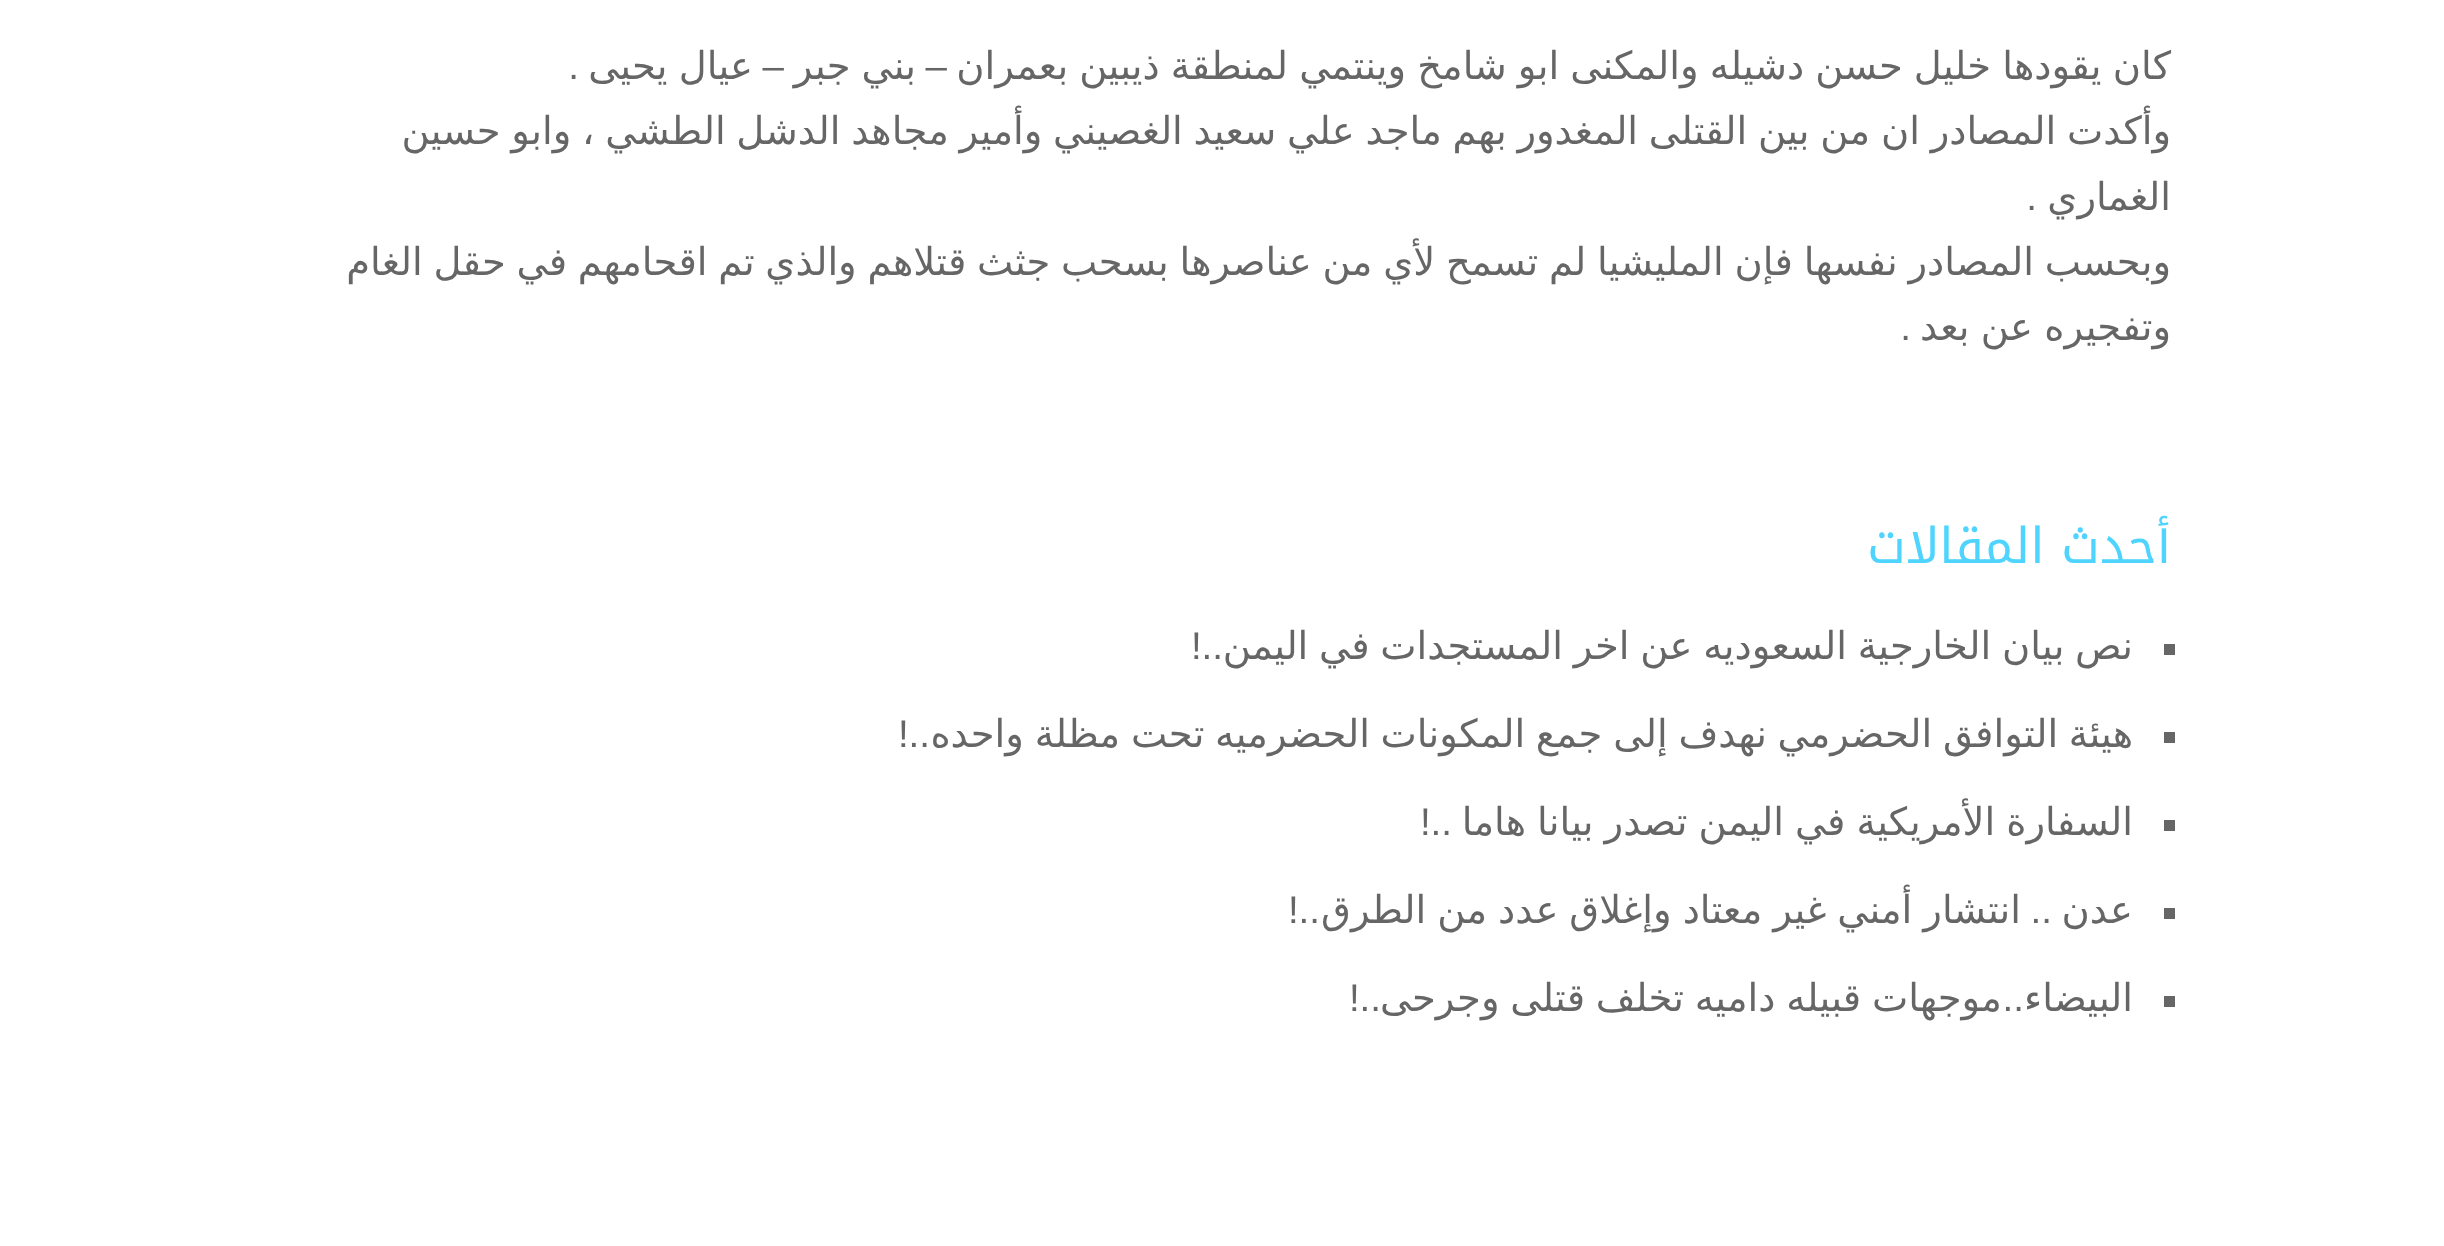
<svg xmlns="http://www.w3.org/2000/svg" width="2444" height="1246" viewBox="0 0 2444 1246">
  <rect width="100%" height="100%" fill="#fff"/>
  <path d="M2164 644h11v11H2164z" fill="#666"/>
  <path d="M2164 732h11v11H2164z" fill="#666"/>
  <path d="M2164 820h11v11H2164z" fill="#666"/>
  <path d="M2164 908h11v11H2164z" fill="#666"/>
  <path d="M2164 996h11v11H2164z" fill="#666"/>
  <text x="2171" y="79" word-spacing="-1.1" font-family="DejaVu Sans" font-size="38.5" direction="rtl" fill="#666">كان يقودها خليل حسن دشيله والمكنى ابو شامخ وينتمي لمنطقة ذيبين بعمران</text>
  <text x="947" y="79" font-family="Liberation Sans" font-size="38.5" direction="rtl" fill="#666">–</text>
  <text x="916" y="79" word-spacing="-1.1" font-family="DejaVu Sans" font-size="38.5" direction="rtl" fill="#666">بني جبر</text>
  <text x="784" y="79" font-family="Liberation Sans" font-size="38.5" direction="rtl" fill="#666">–</text>
  <text x="753" y="79" word-spacing="-1.1" font-family="DejaVu Sans" font-size="38.5" direction="rtl" fill="#666">عيال يحيى</text>
  <text x="579" y="79" font-family="Liberation Sans" font-size="38.5" direction="rtl" fill="#666">.</text>
  <g font-family="DejaVu Sans" font-size="38.5" direction="rtl" fill="#666">
    <text x="2171" y="144" word-spacing="-1.5">وأكدت المصادر ان من بين القتلى المغدور بهم ماجد علي سعيد الغصيني وأمير مجاهد الدشل الطشي ، وابو حسين</text>
    <text x="2171" y="210">الغماري</text>
  </g>
  <text x="2037" y="210" font-family="Liberation Sans" font-size="38.5" direction="rtl" fill="#666">.</text>
  <g font-family="DejaVu Sans" font-size="38.5" direction="rtl" fill="#666">
    <text x="2171" y="275" word-spacing="-1.5">وبحسب المصادر نفسها فإن المليشيا لم تسمح لأي من عناصرها بسحب جثث قتلاهم والذي تم اقحامهم في حقل الغام</text>
    <text x="2171" y="340" word-spacing="-1">وتفجيره عن بعد</text>
  </g>
  <text x="1911" y="340" font-family="Liberation Sans" font-size="38.5" direction="rtl" fill="#666">.</text>
  <text x="2171" y="563" font-family="Noto Kufi Arabic" font-size="49.5" direction="rtl" fill="#4fd4ff">أحدث المقالات</text>
  <text x="2133" y="659" word-spacing="-1.5" font-family="DejaVu Sans" font-size="38.5" direction="rtl" fill="#666">نص بيان الخارجية السعوديه عن اخر المستجدات في اليمن</text>
  <text x="1223" y="659" font-family="Liberation Sans" font-size="38.5" direction="rtl" fill="#666">..!</text>
  <g font-family="DejaVu Sans" font-size="38.5" direction="rtl" fill="#666">
    <text x="2133" y="747" word-spacing="-1.5">هيئة التوافق الحضرمي</text>
    <text x="1767" y="747" word-spacing="-1.5">نهدف إلى جمع المكونات الحضرميه تحت مظلة واحده</text>
  </g>
  <text x="930" y="747" font-family="Liberation Sans" font-size="38.5" direction="rtl" fill="#666">..!</text>
  <text x="2133" y="835" word-spacing="-1.25" font-family="DejaVu Sans" font-size="38.5" direction="rtl" fill="#666">السفارة الأمريكية في اليمن تصدر بيانا هاما</text>
  <text x="1452" y="835" font-family="Liberation Sans" font-size="38.5" direction="rtl" fill="#666">..!</text>
  <g font-family="DejaVu Sans" font-size="38.5" direction="rtl" fill="#666">
    <text x="2133" y="923">عدن</text>
    <text x="2021" y="923" word-spacing="-1.25">انتشار أمني غير معتاد وإغلاق عدد من الطرق</text>
  </g>
  <g font-family="Liberation Sans" font-size="38.5" direction="rtl" fill="#666">
    <text x="1320" y="923">..!</text>
    <text x="2052" y="923">..</text>
  </g>
  <g font-family="DejaVu Sans" font-size="38.5" direction="rtl" fill="#666">
    <text x="2133" y="1011">البيضاء</text>
    <text x="2002" y="1011" word-spacing="-1.5">موجهات قبيله داميه تخلف قتلى وجرحى</text>
  </g>
  <g font-family="Liberation Sans" font-size="38.5" direction="rtl" fill="#666">
    <text x="1381" y="1011">..!</text>
    <text x="2024" y="1011">..</text>
  </g>
</svg>
